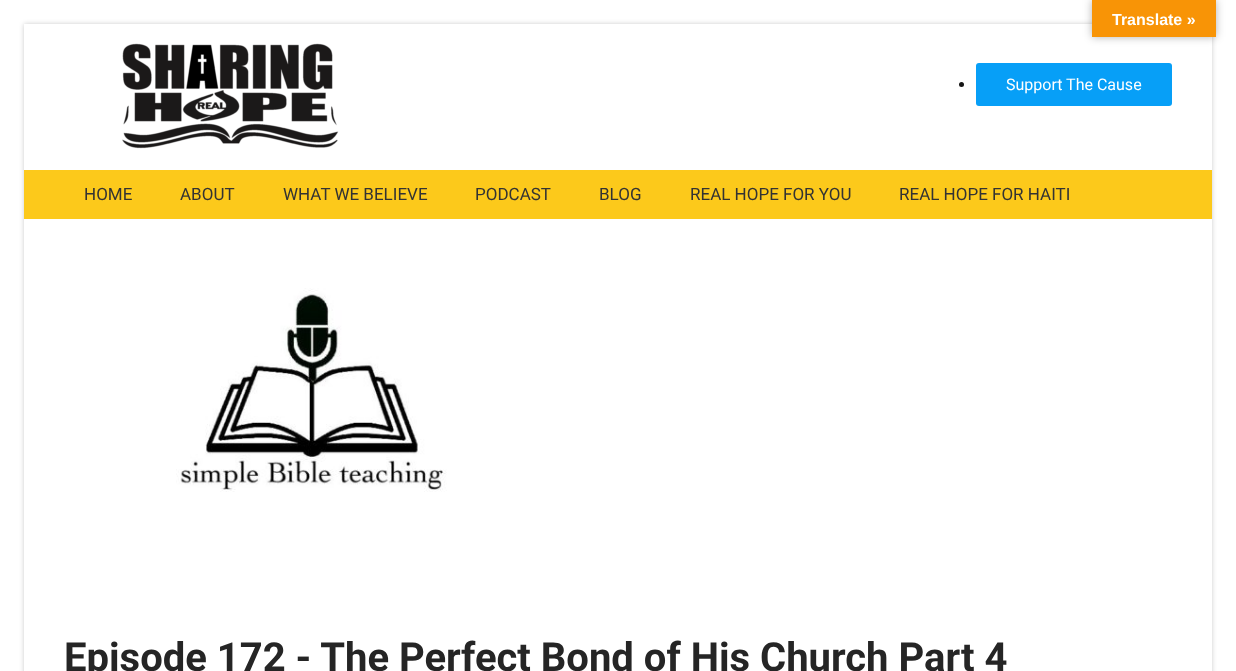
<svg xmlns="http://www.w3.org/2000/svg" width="1236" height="671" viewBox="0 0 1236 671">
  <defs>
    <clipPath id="clip1"><path d="M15 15H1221V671H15ZM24 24H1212V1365H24Z" clip-rule="evenodd"/></clipPath>
  </defs>
  <rect width="100%" height="100%" fill="#fff"/>
  <path d="M1092 0h124v37H1092z" fill="#0000004d" filter="blur(4.5px)"/>
  <g clip-path="url(#clip1)">
    <path d="M24 24h1188v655H24z" fill="#00000033" filter="blur(2.5px)"/>
  </g>
  <path d="M1092 0h124v37H1092z" fill="#f89406"/>
  <image x="122" y="43" width="217" height="106" href="img/1.png"/>
  <circle cx="961.5" cy="84.5" r="2.5" fill="#151515"/>
  <rect x="976" y="63" width="196" height="43" rx="3" fill="#079ff7"/>
  <path d="M24 170h1188v49H24z" fill="#fcc91b"/>
  <image x="176" y="288" width="271" height="204" href="img/2.png"/>
  <text x="1112" y="25" font-family="Liberation Sans" font-size="16" font-weight="bold" fill="#fff">Translate »</text>
  <text x="1006" y="90" font-family="Roboto" font-size="16" fill="#fff">Support The Cause</text>
  <g font-family="Roboto" font-size="17" fill="#333">
    <text x="84" y="200">HOME</text>
    <text x="180" y="200">ABOUT</text>
    <text x="283" y="200">WHAT WE BELIEVE</text>
    <text x="475" y="200">PODCAST</text>
    <text x="599" y="200">BLOG</text>
    <text x="690" y="200">REAL HOPE FOR YOU</text>
    <text x="899" y="200">REAL HOPE FOR HAITI</text>
  </g>
  <text x="64" y="671" font-family="Roboto" font-size="40" font-weight="bold" fill="#252525">Episode 172 - The Perfect Bond of His Church Part 4</text>
</svg>
